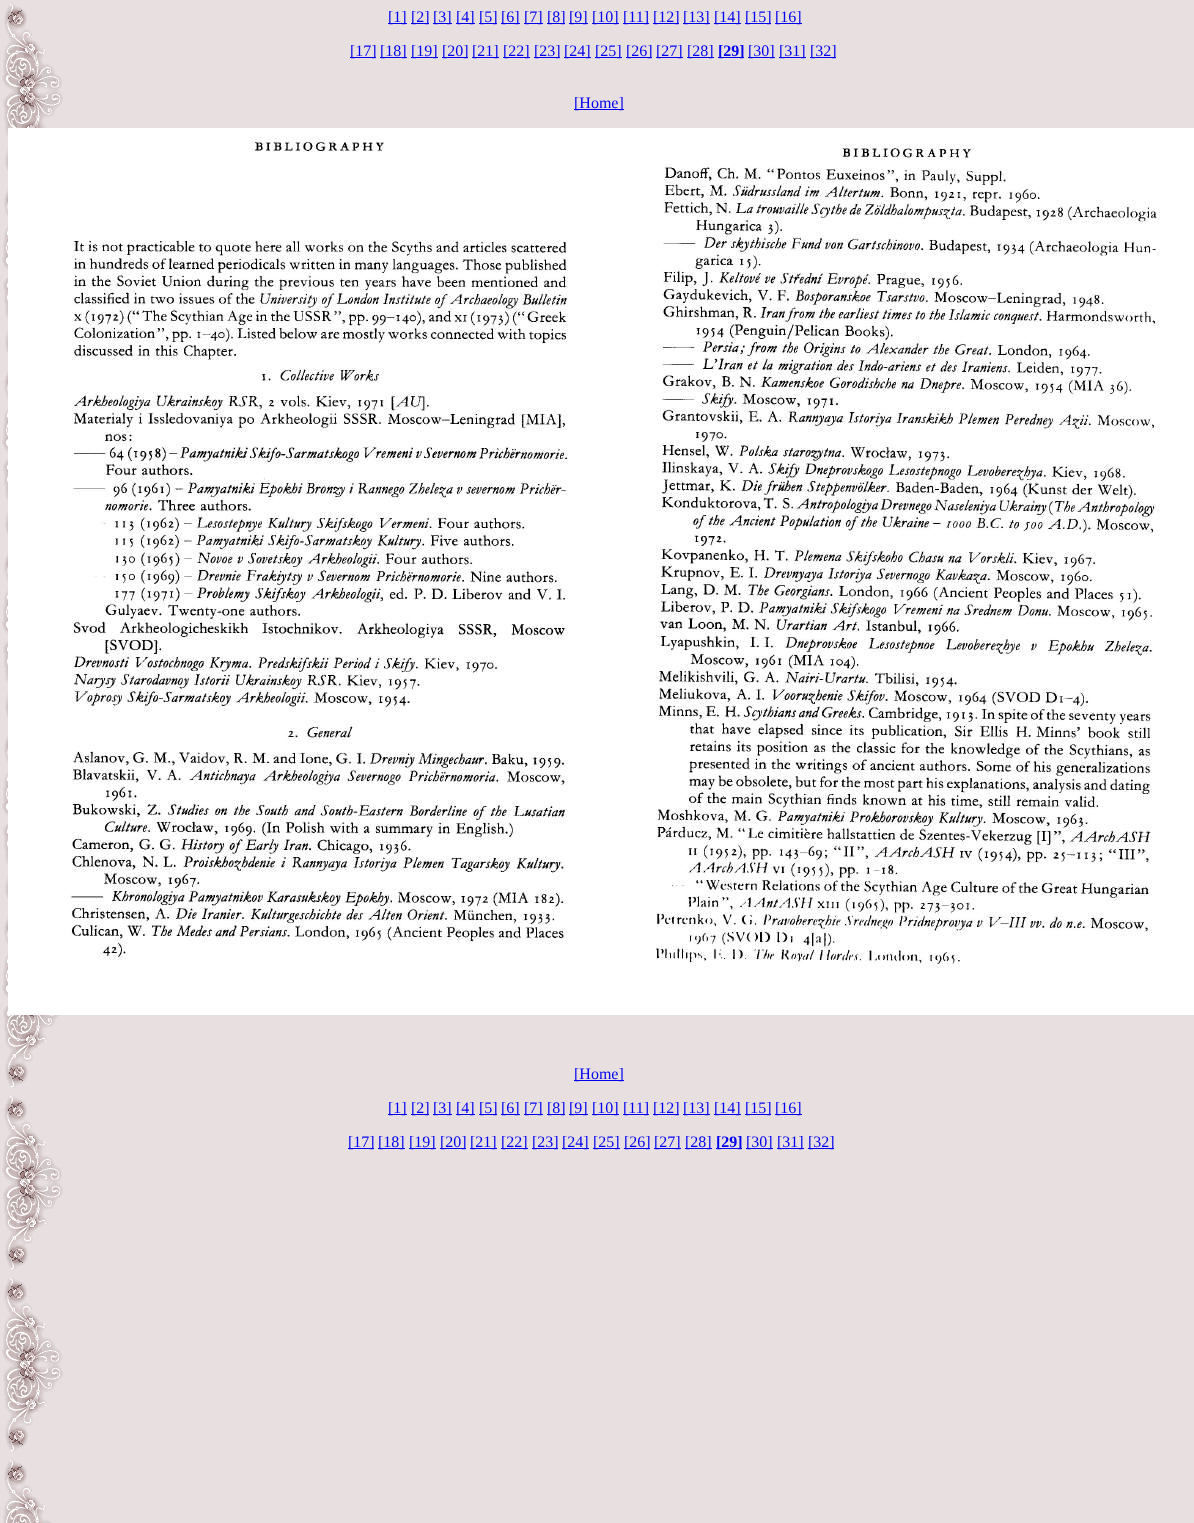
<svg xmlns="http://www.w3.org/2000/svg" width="1194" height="1523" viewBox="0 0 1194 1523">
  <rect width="100%" height="100%" fill="#fff"/>
  <image x="0" y="0" width="1194" height="1523" href="img/1.png"/>
  <path d="M388 23h19v1H388z" fill="#00e"/>
  <path d="M411 23h18v1H411z" fill="#00e"/>
  <path d="M433 23h19v1H433z" fill="#00e"/>
  <path d="M456 23h19v1H456z" fill="#00e"/>
  <path d="M479 23h18v1H479z" fill="#00e"/>
  <path d="M501 23h19v1H501z" fill="#00e"/>
  <path d="M524 23h19v1H524z" fill="#00e"/>
  <path d="M547 23h18v1H547z" fill="#00e"/>
  <path d="M569 23h19v1H569z" fill="#00e"/>
  <path d="M592 23h27v1H592z" fill="#00e"/>
  <path d="M623 23h26v1H623z" fill="#00e"/>
  <path d="M653 23h26v1H653z" fill="#00e"/>
  <path d="M683 23h27v1H683z" fill="#00e"/>
  <path d="M714 23h27v1H714z" fill="#00e"/>
  <path d="M745 23h26v1H745z" fill="#00e"/>
  <path d="M775 23h27v1H775z" fill="#00e"/>
  <path d="M350 57h26v1H350z" fill="#00e"/>
  <path d="M380 57h27v1H380z" fill="#00e"/>
  <path d="M411 57h27v1H411z" fill="#00e"/>
  <path d="M442 57h26v1H442z" fill="#00e"/>
  <path d="M472 57h27v1H472z" fill="#00e"/>
  <path d="M503 57h27v1H503z" fill="#00e"/>
  <path d="M534 57h26v1H534z" fill="#00e"/>
  <path d="M564 57h27v1H564z" fill="#00e"/>
  <path d="M595 57h27v1H595z" fill="#00e"/>
  <path d="M626 57h26v1H626z" fill="#00e"/>
  <path d="M656 57h27v1H656z" fill="#00e"/>
  <path d="M687 57h27v1H687z" fill="#00e"/>
  <path d="M718 57h26v1H718z" fill="#00e"/>
  <path d="M748 57h27v1H748z" fill="#00e"/>
  <path d="M779 57h27v1H779z" fill="#00e"/>
  <path d="M810 57h26v1H810z" fill="#00e"/>
  <path d="M574 109h50v1H574z" fill="#00e"/>
  <image x="8" y="128" width="1186" height="887" href="img/2.png"/>
  <path d="M574 1080h50v1H574z" fill="#00e"/>
  <path d="M388 1114h19v1H388z" fill="#00e"/>
  <path d="M411 1114h18v1H411z" fill="#00e"/>
  <path d="M433 1114h19v1H433z" fill="#00e"/>
  <path d="M456 1114h19v1H456z" fill="#00e"/>
  <path d="M479 1114h18v1H479z" fill="#00e"/>
  <path d="M501 1114h19v1H501z" fill="#00e"/>
  <path d="M524 1114h19v1H524z" fill="#00e"/>
  <path d="M547 1114h18v1H547z" fill="#00e"/>
  <path d="M569 1114h19v1H569z" fill="#00e"/>
  <path d="M592 1114h27v1H592z" fill="#00e"/>
  <path d="M623 1114h26v1H623z" fill="#00e"/>
  <path d="M653 1114h26v1H653z" fill="#00e"/>
  <path d="M683 1114h27v1H683z" fill="#00e"/>
  <path d="M714 1114h27v1H714z" fill="#00e"/>
  <path d="M745 1114h26v1H745z" fill="#00e"/>
  <path d="M775 1114h27v1H775z" fill="#00e"/>
  <path d="M348 1148h26v1H348z" fill="#00e"/>
  <path d="M378 1148h27v1H378z" fill="#00e"/>
  <path d="M409 1148h27v1H409z" fill="#00e"/>
  <path d="M440 1148h26v1H440z" fill="#00e"/>
  <path d="M470 1148h27v1H470z" fill="#00e"/>
  <path d="M501 1148h27v1H501z" fill="#00e"/>
  <path d="M532 1148h26v1H532z" fill="#00e"/>
  <path d="M562 1148h27v1H562z" fill="#00e"/>
  <path d="M593 1148h27v1H593z" fill="#00e"/>
  <path d="M624 1148h26v1H624z" fill="#00e"/>
  <path d="M654 1148h27v1H654z" fill="#00e"/>
  <path d="M685 1148h27v1H685z" fill="#00e"/>
  <path d="M716 1148h26v1H716z" fill="#00e"/>
  <path d="M746 1148h27v1H746z" fill="#00e"/>
  <path d="M777 1148h27v1H777z" fill="#00e"/>
  <path d="M808 1148h26v1H808z" fill="#00e"/>
  <g font-family="Liberation Serif" font-size="16" fill="#00e">
    <text x="388" y="22">[1]</text>
    <text x="411" y="22">[2]</text>
    <text x="433" y="22">[3]</text>
    <text x="456" y="22">[4]</text>
    <text x="479" y="22">[5]</text>
    <text x="501" y="22">[6]</text>
    <text x="524" y="22">[7]</text>
    <text x="547" y="22">[8]</text>
    <text x="569" y="22">[9]</text>
    <text x="592" y="22">[10]</text>
    <text x="623" y="22">[11]</text>
    <text x="653" y="22">[12]</text>
    <text x="683" y="22">[13]</text>
    <text x="714" y="22">[14]</text>
    <text x="745" y="22">[15]</text>
    <text x="775" y="22">[16]</text>
    <text x="350" y="56">[17]</text>
    <text x="380" y="56">[18]</text>
    <text x="411" y="56">[19]</text>
    <text x="442" y="56">[20]</text>
    <text x="472" y="56">[21]</text>
    <text x="503" y="56">[22]</text>
    <text x="534" y="56">[23]</text>
    <text x="564" y="56">[24]</text>
    <text x="595" y="56">[25]</text>
    <text x="626" y="56">[26]</text>
    <text x="656" y="56">[27]</text>
    <text x="687" y="56">[28]</text>
  </g>
  <text x="718" y="56" font-family="Liberation Serif" font-size="16" font-weight="bold" fill="#00e">[29]</text>
  <g font-family="Liberation Serif" font-size="16" fill="#00e">
    <text x="748" y="56">[30]</text>
    <text x="779" y="56">[31]</text>
    <text x="810" y="56">[32]</text>
    <text x="574" y="108">[Home]</text>
    <text x="574" y="1079">[Home]</text>
    <text x="388" y="1113">[1]</text>
    <text x="411" y="1113">[2]</text>
    <text x="433" y="1113">[3]</text>
    <text x="456" y="1113">[4]</text>
    <text x="479" y="1113">[5]</text>
    <text x="501" y="1113">[6]</text>
    <text x="524" y="1113">[7]</text>
    <text x="547" y="1113">[8]</text>
    <text x="569" y="1113">[9]</text>
    <text x="592" y="1113">[10]</text>
    <text x="623" y="1113">[11]</text>
    <text x="653" y="1113">[12]</text>
    <text x="683" y="1113">[13]</text>
    <text x="714" y="1113">[14]</text>
    <text x="745" y="1113">[15]</text>
    <text x="775" y="1113">[16]</text>
    <text x="348" y="1147">[17]</text>
    <text x="378" y="1147">[18]</text>
    <text x="409" y="1147">[19]</text>
    <text x="440" y="1147">[20]</text>
    <text x="470" y="1147">[21]</text>
    <text x="501" y="1147">[22]</text>
    <text x="532" y="1147">[23]</text>
    <text x="562" y="1147">[24]</text>
    <text x="593" y="1147">[25]</text>
    <text x="624" y="1147">[26]</text>
    <text x="654" y="1147">[27]</text>
    <text x="685" y="1147">[28]</text>
  </g>
  <text x="716" y="1147" font-family="Liberation Serif" font-size="16" font-weight="bold" fill="#00e">[29]</text>
  <g font-family="Liberation Serif" font-size="16" fill="#00e">
    <text x="746" y="1147">[30]</text>
    <text x="777" y="1147">[31]</text>
    <text x="808" y="1147">[32]</text>
  </g>
</svg>
